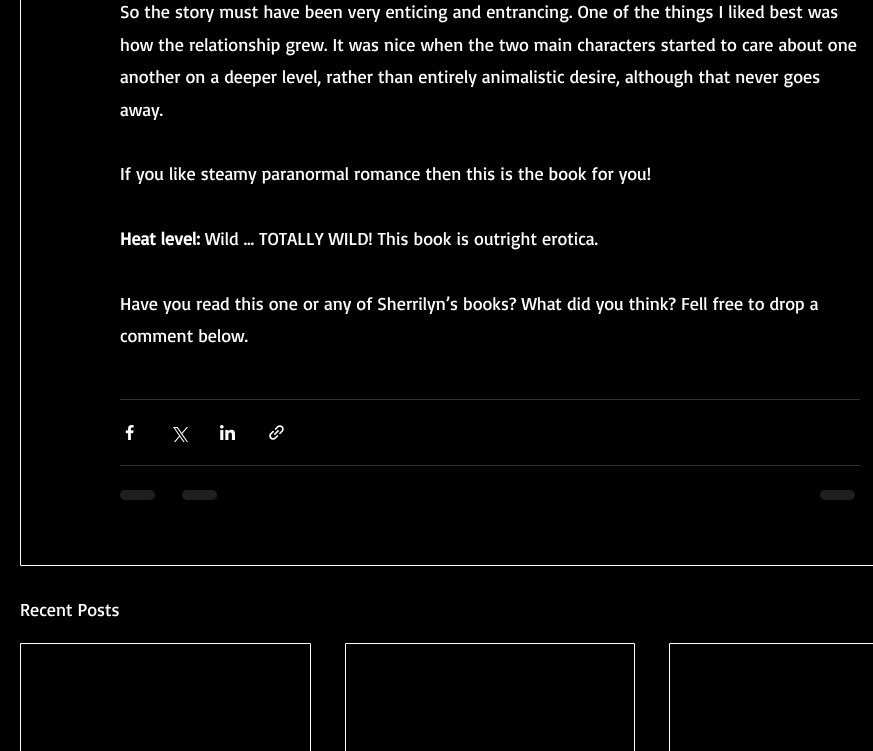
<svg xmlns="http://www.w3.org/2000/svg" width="873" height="751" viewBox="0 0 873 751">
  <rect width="100%" height="100%" fill="#000"/>
  <path d="M20.5 -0.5h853v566H20.5z" fill="none" stroke="#fff"/>
  <path d="M120 399h740v1H120z" fill="#333"/>
  <image x="125" y="425" width="9" height="15" href="img/1.png"/>
  <image x="173" y="427" width="15" height="15" href="img/2.png"/>
  <image x="220" y="425" width="15" height="15" href="img/3.png"/>
  <image x="269" y="425" width="15" height="15" href="img/4.png"/>
  <path d="M120 465h740v1H120z" fill="#333"/>
  <rect x="120" y="490" width="35" height="10" rx="5" fill="#1f1f1f"/>
  <rect x="182" y="490" width="35" height="10" rx="5" fill="#1f1f1f"/>
  <rect x="820" y="490" width="35" height="10" rx="5" fill="#1f1f1f"/>
  <path d="M20.5 643.5h290v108H20.5z" fill="none" stroke="#fff"/>
  <path d="M345.5 643.5h289v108H345.5z" fill="none" stroke="#fff"/>
  <path d="M669.5 643.5h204v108H669.5z" fill="none" stroke="#fff"/>
  <g font-family="Basic" font-size="18" fill="#fff">
    <text x="120" y="18">So the story must have been very enticing and entrancing. One of the things I liked best was</text>
    <text x="120" y="51">how the relationship grew. It was nice when the two main characters started to care about one</text>
    <text x="120" y="83">another on a deeper level, rather than entirely animalistic desire, although that never goes</text>
    <text x="120" y="116">away.</text>
    <text x="120" y="180">If you like steamy paranormal romance then this is the book for you!</text>
  </g>
  <text x="120" y="245" font-family="Basic" font-size="18" font-weight="bold" fill="#fff">Heat level:</text>
  <g font-family="Basic" font-size="18" fill="#fff">
    <text x="205" y="245">Wild … TOTALLY WILD! This book is outright erotica.</text>
    <text x="120" y="310">Have you read this one or any of Sherrilyn’s books? What did you think? Fell free to drop a</text>
    <text x="120" y="342">comment below.</text>
    <text x="20" y="616">Recent Posts</text>
  </g>
</svg>
